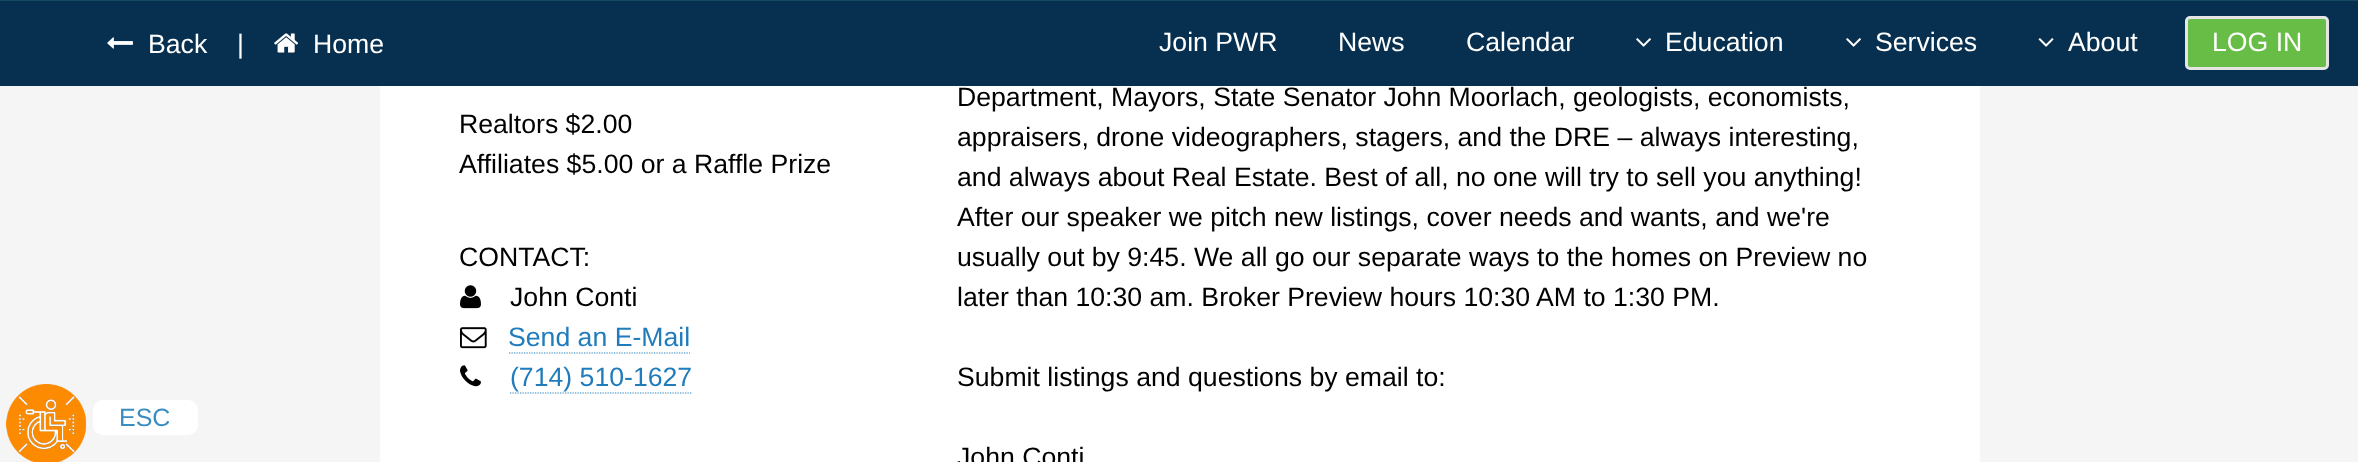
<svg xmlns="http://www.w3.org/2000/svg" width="2358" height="462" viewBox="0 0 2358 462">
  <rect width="100%" height="100%" fill="#f5f5f5"/>
  <path d="M0 0h2358v1H0z" fill="#15495f"/>
  <image x="6" y="384" width="80" height="78" href="img/1.png"/>
  <rect x="93" y="400" width="105" height="35" rx="10" fill="#fff"/>
  <path d="M0 1h2358v85H0z" fill="#073050"/>
  <image x="107" y="37" width="26" height="12" href="img/2.png"/>
  <image x="274" y="33" width="25" height="20" href="img/3.png"/>
  <image x="1636" y="38" width="15" height="9" href="img/4.png"/>
  <image x="1846" y="38" width="15" height="9" href="img/4.png"/>
  <image x="2038" y="38" width="16" height="9" href="img/5.png"/>
  <rect x="2186.5" y="17.5" width="141" height="51" rx="3.5" fill="#67bd45" stroke="#e5e5e5" stroke-width="3"/>
  <path d="M380 86h1600v376H380z" fill="#fff"/>
  <image x="460" y="285" width="21" height="24" href="img/6.png"/>
  <image x="460" y="327" width="27" height="22" href="img/7.png"/>
  <path d="M509 353H690" fill="none" stroke="#217cbc" stroke-width="1.2" stroke-dasharray="1.25 1.25"/>
  <image x="460" y="365" width="21" height="22" href="img/8.png"/>
  <path d="M510 393H692.5" fill="none" stroke="#217cbc" stroke-width="1.2" stroke-dasharray="1.25 1.25"/>
  <text x="119" y="426" font-family="Liberation Sans" font-size="25" fill="#3a8dc2">ESC</text>
  <g font-family="Liberation Sans" font-size="26.65" fill="#fff">
    <text x="148" y="53">Back</text>
    <text x="237" y="53">|</text>
    <text x="313" y="53">Home</text>
    <text x="1159" y="51">Join PWR</text>
    <text x="1338" y="51">News</text>
    <text x="1466" y="51">Calendar</text>
    <text x="1665" y="51">Education</text>
    <text x="1875" y="51">Services</text>
    <text x="2068" y="51">About</text>
    <text x="2212" y="51">LOG IN</text>
  </g>
  <g font-family="Liberation Sans" font-size="26.65" fill="#000">
    <text x="459" y="133">Realtors $2.00</text>
    <text x="459" y="173">Affiliates $5.00 or a Raffle Prize</text>
    <text x="459" y="266">CONTACT:</text>
    <text x="510" y="306">John Conti</text>
  </g>
  <g font-family="Liberation Sans" font-size="26.65" fill="#217cbc">
    <text x="508" y="346">Send an E-Mail</text>
    <text x="510" y="386">(714) 510-1627</text>
  </g>
  <g font-family="Liberation Sans" font-size="26.65" fill="#000">
    <text x="957" y="106">Department, Mayors, State Senator John Moorlach, geologists, economists,</text>
    <text x="957" y="146">appraisers, drone videographers, stagers, and the DRE – always interesting,</text>
    <text x="957" y="186">and always about Real Estate. Best of all, no one will try to sell you anything!</text>
    <text x="957" y="226">After our speaker we pitch new listings, cover needs and wants, and we're</text>
    <text x="957" y="266">usually out by 9:45. We all go our separate ways to the homes on Preview no</text>
    <text x="957" y="306">later than 10:30 am. Broker Preview hours 10:30 AM to 1:30 PM.</text>
    <text x="957" y="386">Submit listings and questions by email to:</text>
    <text x="957" y="466">John Conti</text>
  </g>
</svg>
